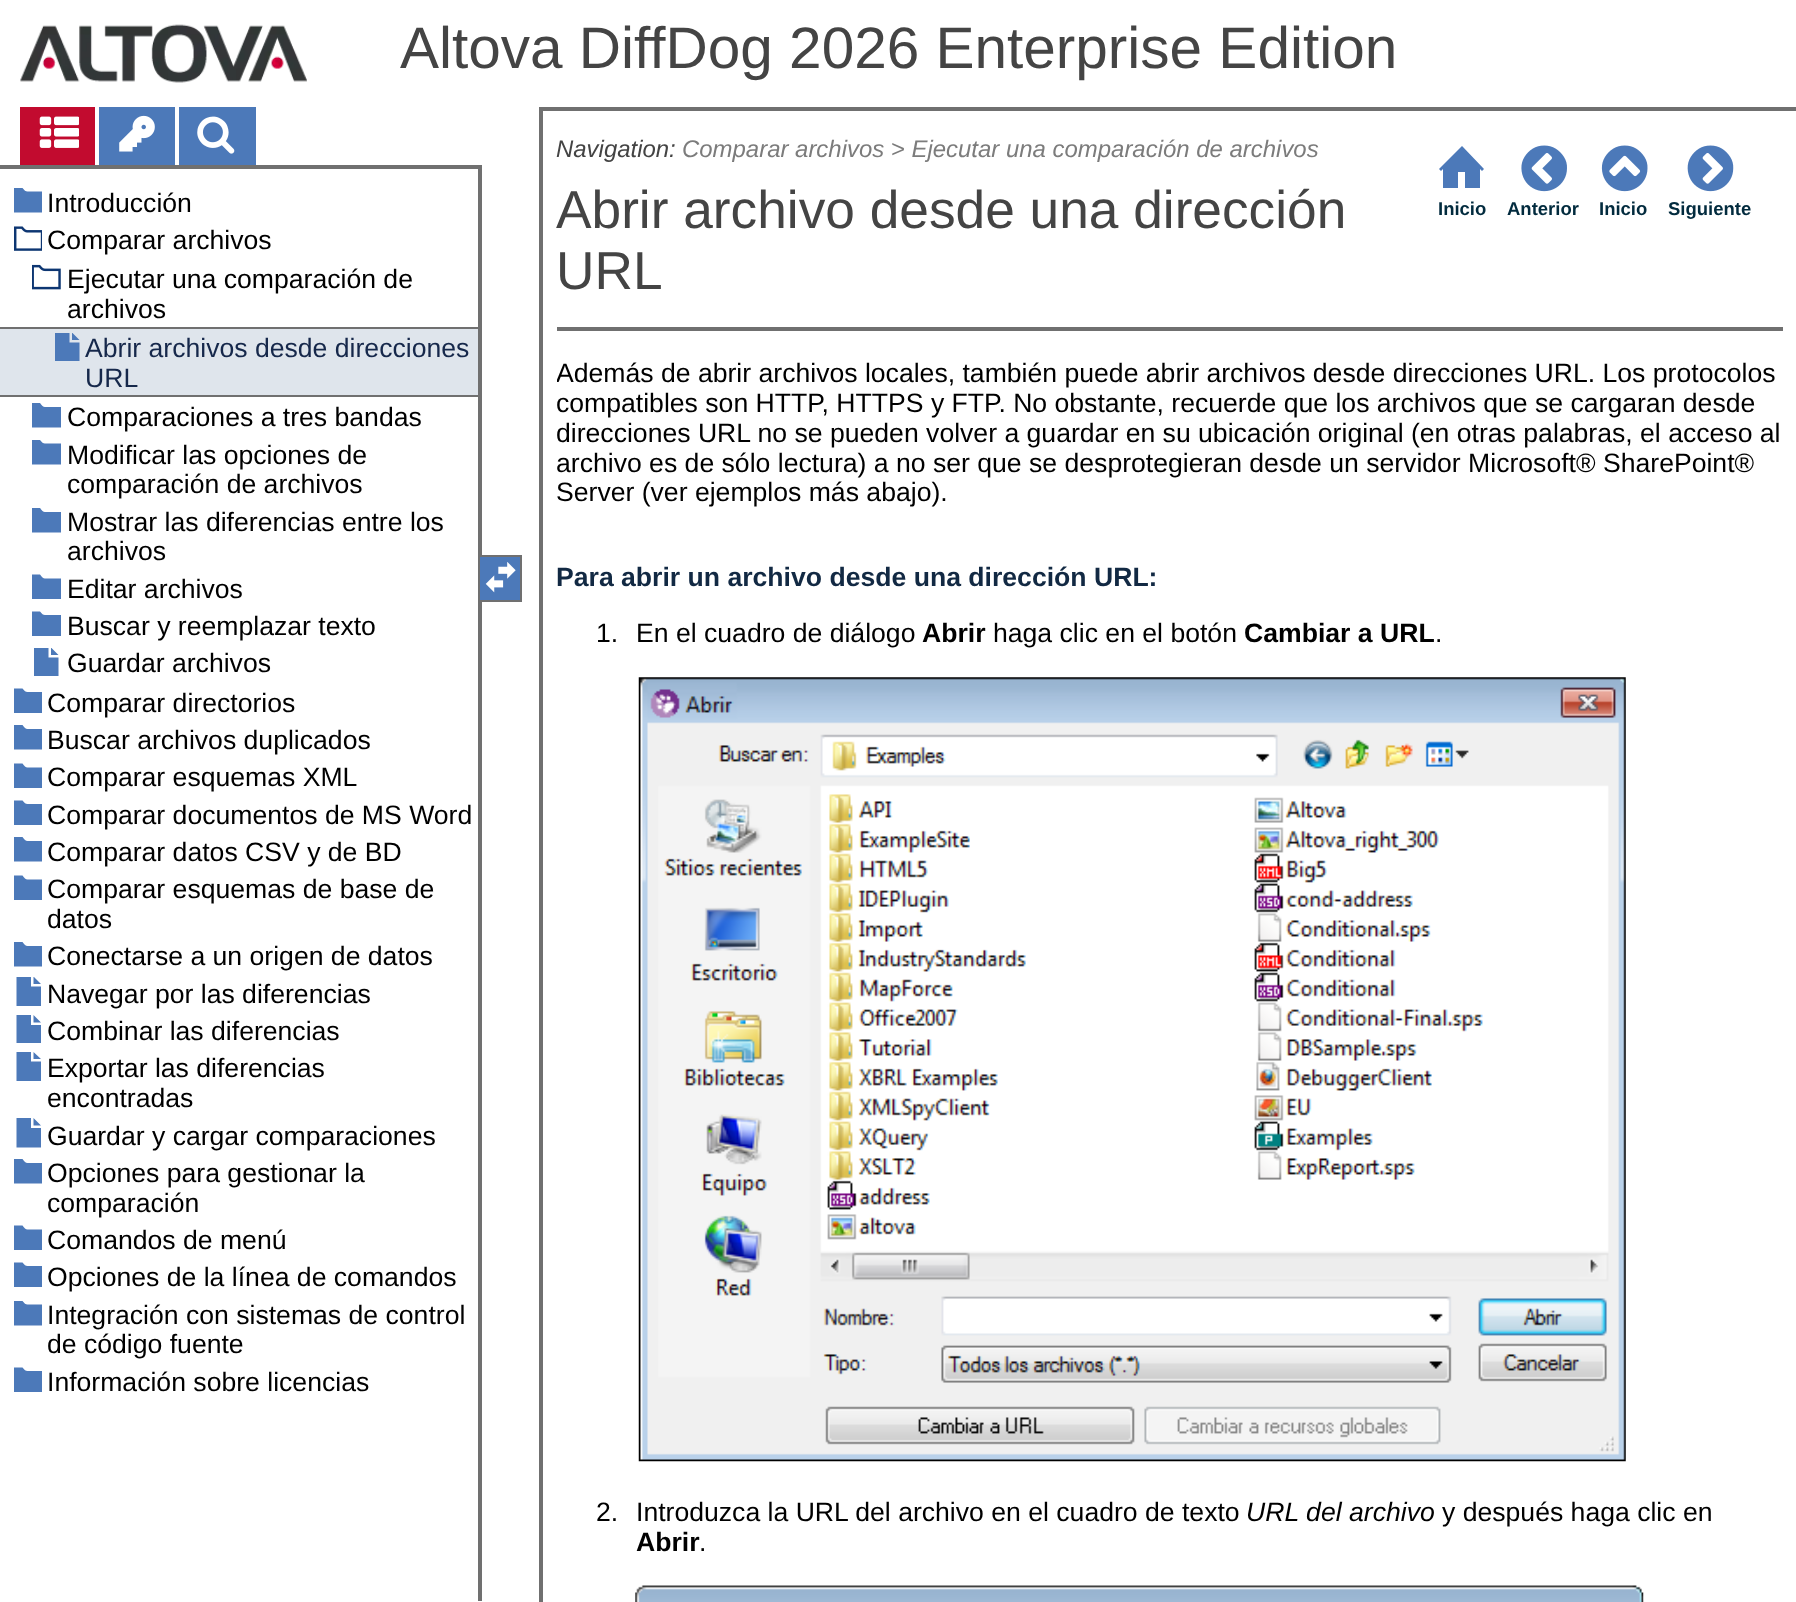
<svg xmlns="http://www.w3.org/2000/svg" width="1796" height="1602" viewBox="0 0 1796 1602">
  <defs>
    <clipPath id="clip1"><path d="M14 186h28v29H14z"/></clipPath>
    <clipPath id="clip2"><path d="M53 333h29v28H53z"/></clipPath>
    <clipPath id="clip3"><path d="M0 327h478v70H0z"/></clipPath>
    <clipPath id="clip4"><path d="M32 401h29v30H32z"/></clipPath>
    <clipPath id="clip5"><path d="M32 438h29v29H32z"/></clipPath>
    <clipPath id="clip6"><path d="M32 506h29v28H32z"/></clipPath>
    <clipPath id="clip7"><path d="M32 572h29v30H32z"/></clipPath>
    <clipPath id="clip8"><path d="M32 609h29v30H32z"/></clipPath>
    <clipPath id="clip9"><path d="M32 648h29v28H32z"/></clipPath>
    <clipPath id="clip10"><path d="M14 686h28v30H14z"/></clipPath>
    <clipPath id="clip11"><path d="M14 723h28v30H14z"/></clipPath>
    <clipPath id="clip12"><path d="M14 761h28v28H14z"/></clipPath>
    <clipPath id="clip13"><path d="M14 798h28v30H14z"/></clipPath>
    <clipPath id="clip14"><path d="M14 835h28v30H14z"/></clipPath>
    <clipPath id="clip15"><path d="M14 873h28v28H14z"/></clipPath>
    <clipPath id="clip16"><path d="M14 940h28v30H14z"/></clipPath>
    <clipPath id="clip17"><path d="M14 977h28v29H14z"/></clipPath>
    <clipPath id="clip18"><path d="M14 1015h28v28H14z"/></clipPath>
    <clipPath id="clip19"><path d="M14 1157h28v28H14z"/></clipPath>
    <clipPath id="clip20"><path d="M14 1223h28v30H14z"/></clipPath>
    <clipPath id="clip21"><path d="M14 1260h28v30H14z"/></clipPath>
    <clipPath id="clip22"><path d="M14 1299h28v28H14z"/></clipPath>
    <clipPath id="clip23"><path d="M14 1365h28v30H14z"/></clipPath>
    <clipPath id="clip24"><path d="M557 331h1226v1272H557z"/></clipPath>
  </defs>
  <rect width="100%" height="100%" fill="#fff"/>
  <image x="20" y="24" width="287" height="59" href="img/1.png"/>
  <path d="M20 107h75v58H20z" fill="#c20b2f"/>
  <path d="M99 107h76v58H99z" fill="#4c79b9"/>
  <path d="M179 107h77v58H179z" fill="#4c79b9"/>
  <image x="39" y="116" width="40" height="32" href="img/2.png"/>
  <image x="119" y="115" width="36" height="37" href="img/3.png"/>
  <image x="197" y="116" width="38" height="38" href="img/4.png"/>
  <path d="M0 165h481v4H0z" fill="#707070"/>
  <path d="M478 165h4v1436H478z" fill="#707070"/>
  <g clip-path="url(#clip1)">
    <path d="M27.5 191.5C25.5 191.5 24.5 190.5 22.5 188H14V212.5H43.5V191.5Z" fill="#4c79b9"/>
  </g>
  <image x="14" y="226" width="28" height="25" href="img/5.png"/>
  <image x="32" y="264" width="29" height="26" href="img/6.png"/>
  <path d="M0 329h478v66H0z" fill="#dfe5ec"/>
  <g clip-path="url(#clip2)">
    <path d="M79.5 340H72V332.5ZM69.5 342.5V332.5H55V362H79.5V342.5Z" fill="#4c79b9"/>
  </g>
  <g clip-path="url(#clip3)">
    <path d="M-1 328h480v68H-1z" fill="none" stroke="#707070" stroke-width="2"/>
  </g>
  <g clip-path="url(#clip4)">
    <path d="M45 407C43 407 42 405.5 40 403H31.5V427.5H61V407Z" fill="#4c79b9"/>
  </g>
  <g clip-path="url(#clip5)">
    <path d="M45 443.5C43 443.5 42 442.5 40 440H31.5V464.5H61V443.5Z" fill="#4c79b9"/>
  </g>
  <g clip-path="url(#clip6)">
    <path d="M45 512C43 512 42 510.5 40 508H31.5V532.5H61V512Z" fill="#4c79b9"/>
  </g>
  <g clip-path="url(#clip7)">
    <path d="M45 578.5C43 578.5 42 577 40 574.5H31.5V599H61V578.5Z" fill="#4c79b9"/>
  </g>
  <g clip-path="url(#clip8)">
    <path d="M45 615C43 615 42 614 40 611.5H31.5V636H61V615Z" fill="#4c79b9"/>
  </g>
  <g clip-path="url(#clip9)">
    <path d="M58.5 655H51V647.5ZM48.5 657.5V647.5H34V677H58.5V657.5Z" fill="#4c79b9"/>
  </g>
  <g clip-path="url(#clip10)">
    <path d="M27.5 692C25.5 692 24.5 691 22.5 688.5H14V713H43.5V692Z" fill="#4c79b9"/>
  </g>
  <g clip-path="url(#clip11)">
    <path d="M27.5 729C25.5 729 24.5 727.5 22.5 725H14V749.5H43.5V729Z" fill="#4c79b9"/>
  </g>
  <g clip-path="url(#clip12)">
    <path d="M27.5 767.5C25.5 767.5 24.5 766 22.5 763.5H14V788H43.5V767.5Z" fill="#4c79b9"/>
  </g>
  <g clip-path="url(#clip13)">
    <path d="M27.5 804C25.5 804 24.5 803 22.5 800.5H14V825H43.5V804Z" fill="#4c79b9"/>
  </g>
  <g clip-path="url(#clip14)">
    <path d="M27.5 841C25.5 841 24.5 839.5 22.5 837H14V861.5H43.5V841Z" fill="#4c79b9"/>
  </g>
  <g clip-path="url(#clip15)">
    <path d="M27.5 879.5C25.5 879.5 24.5 878 22.5 875.5H14V900H43.5V879.5Z" fill="#4c79b9"/>
  </g>
  <g clip-path="url(#clip16)">
    <path d="M27.5 946C25.5 946 24.5 944.5 22.5 942H14V966.5H43.5V946Z" fill="#4c79b9"/>
  </g>
  <g clip-path="url(#clip17)">
    <path d="M41 984H33.5V976.5ZM31 986.5V976.5H16.5V1006H41V986.5Z" fill="#4c79b9"/>
  </g>
  <g clip-path="url(#clip18)">
    <path d="M41 1022.5H33.5V1015ZM31 1025V1015H16.5V1044.5H41V1025Z" fill="#4c79b9"/>
  </g>
  <path d="M41 1059H33.5V1052ZM31 1061.5V1052H16.5V1081H41V1061.5Z" fill="#4c79b9"/>
  <path d="M41 1125.5H33.5V1118ZM31 1128V1118H16.5V1147.5H41V1128Z" fill="#4c79b9"/>
  <g clip-path="url(#clip19)">
    <path d="M27.5 1163C25.5 1163 24.5 1161.5 22.5 1159H14V1183.5H43.5V1163Z" fill="#4c79b9"/>
  </g>
  <g clip-path="url(#clip20)">
    <path d="M27.5 1229.5C25.5 1229.5 24.5 1228 22.5 1225.5H14V1250H43.5V1229.5Z" fill="#4c79b9"/>
  </g>
  <g clip-path="url(#clip21)">
    <path d="M27.5 1266C25.5 1266 24.5 1265 22.5 1262.5H14V1287H43.5V1266Z" fill="#4c79b9"/>
  </g>
  <g clip-path="url(#clip22)">
    <path d="M27.5 1304.5C25.5 1304.5 24.5 1303.5 22.5 1301H14V1325.5H43.5V1304.5Z" fill="#4c79b9"/>
  </g>
  <g clip-path="url(#clip23)">
    <path d="M27.5 1371C25.5 1371 24.5 1370 22.5 1367.5H14V1392H43.5V1371Z" fill="#4c79b9"/>
  </g>
  <path d="M480 557h40v43H480z" fill="#4c79b9"/>
  <path d="M480 555h42v2H480z" fill="#707070"/>
  <path d="M520 555h2v47H520z" fill="#707070"/>
  <path d="M480 600h42v2H480z" fill="#707070"/>
  <image x="485" y="562" width="31" height="31" href="img/7.png"/>
  <path d="M539 107h1257v4H539z" fill="#707070"/>
  <path d="M539 107h4v1495H539z" fill="#707070"/>
  <path d="M1462 146L1439 169L1441 171L1443 169V188H1458V172H1465V188H1480V169L1482 171L1484 169L1463 147Z" fill="#4c79b9"/>
  <image x="1521" y="145" width="46" height="47" href="img/8.png"/>
  <image x="1601" y="145" width="47" height="47" href="img/9.png"/>
  <image x="1687" y="145" width="47" height="47" href="img/10.png"/>
  <path d="M557 327h1226v4H557z" fill="#707070"/>
  <image x="638" y="677" width="988" height="785" href="img/11.png"/>
  <image x="635" y="1585" width="1009" height="17" href="img/12.png"/>
  <text x="400" y="68" font-family="Liberation Sans" font-size="58.5" fill="#444">Altova DiffDog 2026 Enterprise Edition</text>
  <g font-family="Liberation Sans" font-size="26.6" fill="#000">
    <text x="47" y="212">Introducción</text>
    <text x="47" y="249">Comparar archivos</text>
    <text x="67" y="288">Ejecutar una comparación de</text>
    <text x="67" y="318">archivos</text>
  </g>
  <g font-family="Liberation Sans" font-size="26.6" fill="#16284b">
    <text x="85" y="357">Abrir archivos desde direcciones</text>
    <text x="85" y="387">URL</text>
  </g>
  <g font-family="Liberation Sans" font-size="26.6" fill="#000">
    <text x="67" y="426">Comparaciones a tres bandas</text>
    <text x="67" y="464">Modificar las opciones de</text>
    <text x="67" y="493">comparación de archivos</text>
    <text x="67" y="531">Mostrar las diferencias entre los</text>
    <text x="67" y="560">archivos</text>
    <text x="67" y="598">Editar archivos</text>
    <text x="67" y="635">Buscar y reemplazar texto</text>
    <text x="67" y="672">Guardar archivos</text>
    <text x="47" y="712">Comparar directorios</text>
    <text x="47" y="749">Buscar archivos duplicados</text>
    <text x="47" y="786">Comparar esquemas XML</text>
    <text x="47" y="824">Comparar documentos de MS Word</text>
    <text x="47" y="861">Comparar datos CSV y de BD</text>
    <text x="47" y="898">Comparar esquemas de base de</text>
    <text x="47" y="928">datos</text>
    <text x="47" y="965">Conectarse a un origen de datos</text>
    <text x="47" y="1003">Navegar por las diferencias</text>
    <text x="47" y="1040">Combinar las diferencias</text>
    <text x="47" y="1077">Exportar las diferencias</text>
    <text x="47" y="1107">encontradas</text>
    <text x="47" y="1145">Guardar y cargar comparaciones</text>
    <text x="47" y="1182">Opciones para gestionar la</text>
    <text x="47" y="1212">comparación</text>
    <text x="47" y="1249">Comandos de menú</text>
    <text x="47" y="1286">Opciones de la línea de comandos</text>
    <text x="47" y="1324">Integración con sistemas de control</text>
    <text x="47" y="1353">de código fuente</text>
    <text x="47" y="1391">Información sobre licencias</text>
  </g>
  <text x="556" y="157" font-family="Liberation Sans" font-size="23.95" font-style="italic" fill="#444">Navigation:</text>
  <text x="682" y="157" font-family="Liberation Sans" font-size="23.95" font-style="italic" fill="#7c7c7c">Comparar archivos &gt; Ejecutar una comparación de archivos</text>
  <g font-family="Liberation Sans" font-size="53.25" fill="#444">
    <text x="556" y="228">Abrir archivo desde una dirección</text>
    <text x="556" y="289">URL</text>
  </g>
  <g font-family="Liberation Sans" font-size="18.5" font-weight="bold" fill="#022b3e">
    <text x="1438" y="215">Inicio</text>
    <text x="1507" y="215">Anterior</text>
    <text x="1599" y="215">Inicio</text>
    <text x="1668" y="215">Siguiente</text>
  </g>
  <g clip-path="url(#clip24)">
    <text x="556" y="382" font-family="Liberation Sans" font-size="26.6" fill="#000">Además de abrir archivos locales, también puede abrir archivos desde direcciones URL. Los protocolos</text>
  </g>
  <g font-family="Liberation Sans" font-size="26.6" fill="#000">
    <text x="556" y="412">compatibles son HTTP, HTTPS y FTP. No obstante, recuerde que los archivos que se cargaran desde</text>
    <text x="556" y="442">direcciones URL no se pueden volver a guardar en su ubicación original (en otras palabras, el acceso al</text>
    <text x="556" y="472">archivo es de sólo lectura) a no ser que se desprotegieran desde un servidor Microsoft® SharePoint®</text>
    <text x="556" y="501">Server (ver ejemplos más abajo).</text>
  </g>
  <text x="556" y="586" font-family="Liberation Sans" font-size="26.6" font-weight="bold" fill="#122943">Para abrir un archivo desde una dirección URL:</text>
  <g font-family="Liberation Sans" font-size="26.6" fill="#000">
    <text x="596" y="642">1.</text>
    <text x="636" y="642">En el cuadro de diálogo</text>
  </g>
  <text x="922" y="642" font-family="Liberation Sans" font-size="26.6" font-weight="bold" fill="#000">Abrir</text>
  <text x="993" y="642" font-family="Liberation Sans" font-size="26.6" fill="#000">haga clic en el botón</text>
  <text x="1244" y="642" font-family="Liberation Sans" font-size="26.6" font-weight="bold" fill="#000">Cambiar a URL</text>
  <g font-family="Liberation Sans" font-size="26.6" fill="#000">
    <text x="1435" y="642">.</text>
    <text x="596" y="1521">2.</text>
    <text x="636" y="1521">Introduzca la URL del archivo en el cuadro de texto</text>
  </g>
  <text x="1246" y="1521" font-family="Liberation Sans" font-size="26.6" font-style="italic" fill="#000">URL del archivo</text>
  <text x="1442" y="1521" font-family="Liberation Sans" font-size="26.6" fill="#000">y después haga clic en</text>
  <text x="636" y="1551" font-family="Liberation Sans" font-size="26.6" font-weight="bold" fill="#000">Abrir</text>
  <text x="699" y="1551" font-family="Liberation Sans" font-size="26.6" fill="#000">.</text>
</svg>
